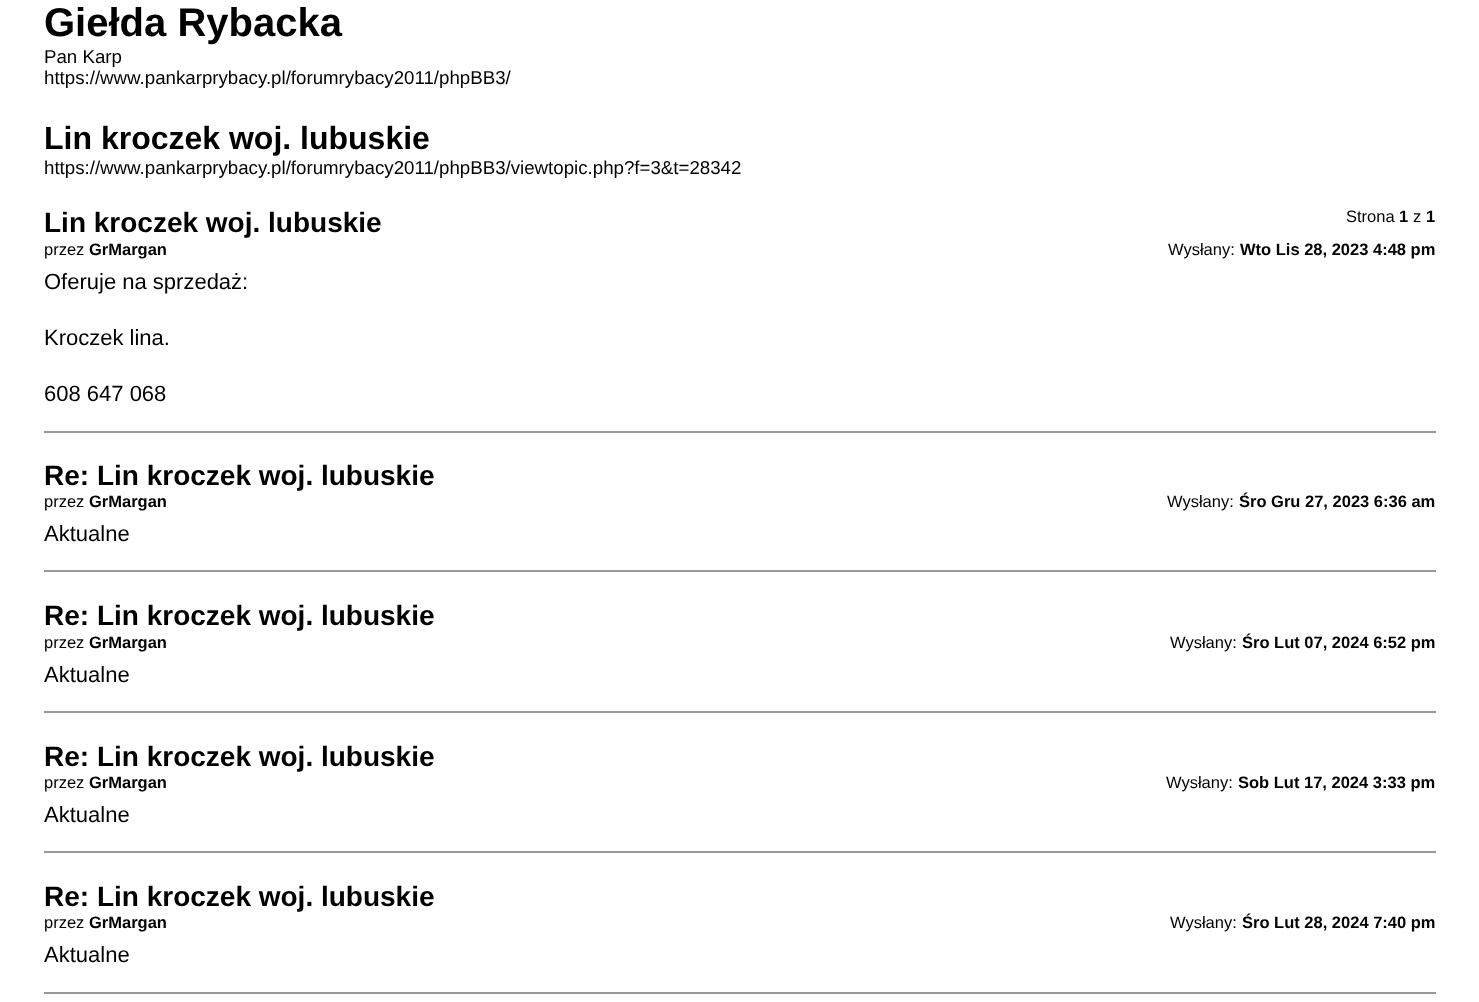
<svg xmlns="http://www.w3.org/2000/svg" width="1479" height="1002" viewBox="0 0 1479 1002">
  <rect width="100%" height="100%" fill="#fff"/>
  <path d="M44 431h1392v2H44z" fill="#999"/>
  <path d="M44 570h1392v2H44z" fill="#999"/>
  <path d="M44 711h1392v2H44z" fill="#999"/>
  <path d="M44 851h1392v2H44z" fill="#999"/>
  <path d="M44 992h1392v2H44z" fill="#999"/>
  <text x="44" y="36" font-family="Liberation Sans" font-size="40" font-weight="bold" fill="#000">Giełda Rybacka</text>
  <g font-family="Liberation Sans" font-size="18.7" fill="#000">
    <text x="44" y="63">Pan Karp</text>
    <text x="44" y="84">https://www.pankarprybacy.pl/forumrybacy2011/phpBB3/</text>
  </g>
  <text x="44" y="149" font-family="Liberation Sans" font-size="32" font-weight="bold" fill="#000">Lin kroczek woj. lubuskie</text>
  <text x="44" y="174" font-family="Liberation Sans" font-size="18.7" fill="#000">https://www.pankarprybacy.pl/forumrybacy2011/phpBB3/viewtopic.php?f=3&amp;t=28342</text>
  <text x="1346" y="222" font-family="Liberation Sans" font-size="16.5" fill="#000">Strona</text>
  <text x="1399" y="222" font-family="Liberation Sans" font-size="16.5" font-weight="bold" fill="#000">1</text>
  <text x="1413" y="222" font-family="Liberation Sans" font-size="16.5" fill="#000">z</text>
  <text x="1426" y="222" font-family="Liberation Sans" font-size="16.5" font-weight="bold" fill="#000">1</text>
  <text x="44" y="232" font-family="Liberation Sans" font-size="28" font-weight="bold" fill="#000">Lin kroczek woj. lubuskie</text>
  <text x="44" y="255" font-family="Liberation Sans" font-size="16.5" fill="#000">przez</text>
  <text x="89" y="255" font-family="Liberation Sans" font-size="16.5" font-weight="bold" fill="#000">GrMargan</text>
  <text x="1168" y="255" font-family="Liberation Sans" font-size="16.5" fill="#000">Wysłany:</text>
  <text x="1240" y="255" font-family="Liberation Sans" font-size="16.5" font-weight="bold" fill="#000">Wto Lis 28, 2023 4:48 pm</text>
  <g font-family="Liberation Sans" font-size="22" fill="#000">
    <text x="44" y="289">Oferuje na sprzedaż:</text>
    <text x="44" y="345">Kroczek lina.</text>
    <text x="44" y="401">608 647 068</text>
  </g>
  <text x="44" y="485" font-family="Liberation Sans" font-size="28" font-weight="bold" fill="#000">Re: Lin kroczek woj. lubuskie</text>
  <text x="44" y="507" font-family="Liberation Sans" font-size="16.5" fill="#000">przez</text>
  <text x="89" y="507" font-family="Liberation Sans" font-size="16.5" font-weight="bold" fill="#000">GrMargan</text>
  <text x="1167" y="507" font-family="Liberation Sans" font-size="16.5" fill="#000">Wysłany:</text>
  <text x="1239" y="507" font-family="Liberation Sans" font-size="16.5" font-weight="bold" fill="#000">Śro Gru 27, 2023 6:36 am</text>
  <text x="44" y="541" font-family="Liberation Sans" font-size="22" fill="#000">Aktualne</text>
  <text x="44" y="625" font-family="Liberation Sans" font-size="28" font-weight="bold" fill="#000">Re: Lin kroczek woj. lubuskie</text>
  <text x="44" y="648" font-family="Liberation Sans" font-size="16.5" fill="#000">przez</text>
  <text x="89" y="648" font-family="Liberation Sans" font-size="16.5" font-weight="bold" fill="#000">GrMargan</text>
  <text x="1170" y="648" font-family="Liberation Sans" font-size="16.5" fill="#000">Wysłany:</text>
  <text x="1242" y="648" font-family="Liberation Sans" font-size="16.5" font-weight="bold" fill="#000">Śro Lut 07, 2024 6:52 pm</text>
  <text x="44" y="682" font-family="Liberation Sans" font-size="22" fill="#000">Aktualne</text>
  <text x="44" y="766" font-family="Liberation Sans" font-size="28" font-weight="bold" fill="#000">Re: Lin kroczek woj. lubuskie</text>
  <text x="44" y="788" font-family="Liberation Sans" font-size="16.5" fill="#000">przez</text>
  <text x="89" y="788" font-family="Liberation Sans" font-size="16.5" font-weight="bold" fill="#000">GrMargan</text>
  <text x="1166" y="788" font-family="Liberation Sans" font-size="16.5" fill="#000">Wysłany:</text>
  <text x="1238" y="788" font-family="Liberation Sans" font-size="16.5" font-weight="bold" fill="#000">Sob Lut 17, 2024 3:33 pm</text>
  <text x="44" y="822" font-family="Liberation Sans" font-size="22" fill="#000">Aktualne</text>
  <text x="44" y="906" font-family="Liberation Sans" font-size="28" font-weight="bold" fill="#000">Re: Lin kroczek woj. lubuskie</text>
  <text x="44" y="928" font-family="Liberation Sans" font-size="16.5" fill="#000">przez</text>
  <text x="89" y="928" font-family="Liberation Sans" font-size="16.5" font-weight="bold" fill="#000">GrMargan</text>
  <text x="1170" y="928" font-family="Liberation Sans" font-size="16.5" fill="#000">Wysłany:</text>
  <text x="1242" y="928" font-family="Liberation Sans" font-size="16.5" font-weight="bold" fill="#000">Śro Lut 28, 2024 7:40 pm</text>
  <text x="44" y="962" font-family="Liberation Sans" font-size="22" fill="#000">Aktualne</text>
</svg>
